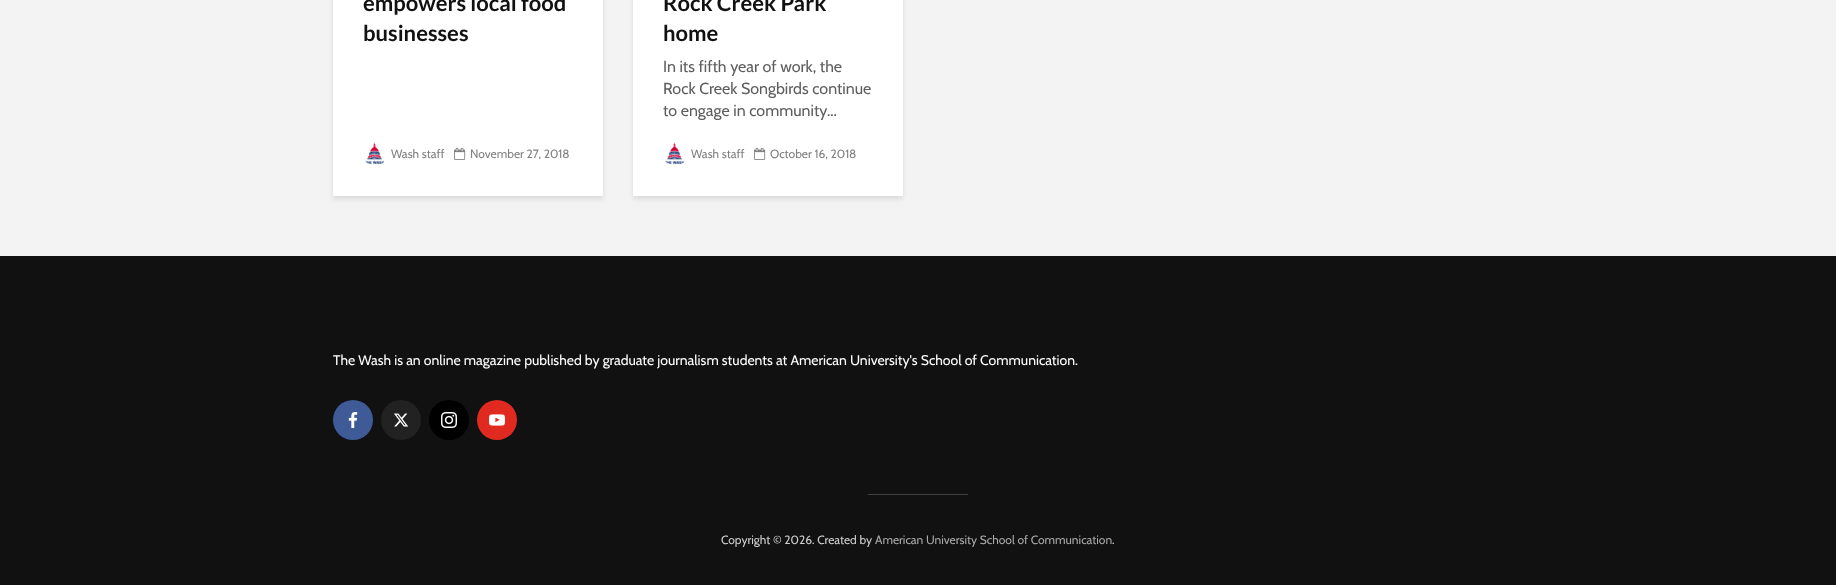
<svg xmlns="http://www.w3.org/2000/svg" width="1836" height="585" viewBox="0 0 1836 585">
  <rect width="100%" height="100%" fill="#f3f3f3"/>
  <path d="M333 -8h270v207H333z" fill="#0001011a" filter="blur(2.5px)"/>
  <path d="M333 0h270v196H333z" fill="#fff"/>
  <image x="365" y="142" width="19" height="23" href="img/1.png"/>
  <image x="454" y="147" width="12" height="13" href="img/2.png"/>
  <path d="M633 -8h270v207H633z" fill="#0001011a" filter="blur(2.5px)"/>
  <path d="M633 0h270v196H633z" fill="#fff"/>
  <image x="665" y="142" width="19" height="23" href="img/3.png"/>
  <image x="754" y="147" width="12" height="13" href="img/2.png"/>
  <path d="M0 256h1836v329H0z" fill="#111"/>
  <circle cx="353" cy="420" r="20" fill="#3e5b98"/>
  <image x="348" y="412" width="10" height="16" href="img/4.png"/>
  <circle cx="401" cy="420" r="20" fill="#222"/>
  <image x="394" y="413" width="15" height="14" href="img/5.png"/>
  <circle cx="449" cy="420" r="20" fill="#000"/>
  <image x="441" y="412" width="16" height="16" href="img/6.png"/>
  <circle cx="497" cy="420" r="20" fill="#e02a20"/>
  <image x="489" y="414" width="16" height="12" href="img/7.png"/>
  <path d="M868 494h100v1H868z" fill="#414141"/>
  <g font-family="Lato" font-size="22" font-weight="bold" fill="#111">
    <text x="363" y="11">empowers local food</text>
    <text x="363" y="41">businesses</text>
  </g>
  <g font-family="Cabin" font-size="12" fill="#818181">
    <text x="391" y="158">Wash staff</text>
    <text x="470" y="158">November 27, 2018</text>
  </g>
  <g font-family="Lato" font-size="22" font-weight="bold" fill="#111">
    <text x="663" y="11">Rock Creek Park</text>
    <text x="663" y="41">home</text>
  </g>
  <g font-family="Cabin" font-size="16" fill="#5e5e5e">
    <text x="663" y="72">In its fifth year of work, the</text>
    <text x="663" y="94">Rock Creek Songbirds continue</text>
    <text x="663" y="116">to engage in community...</text>
  </g>
  <g font-family="Cabin" font-size="12" fill="#818181">
    <text x="691" y="158">Wash staff</text>
    <text x="770" y="158">October 16, 2018</text>
  </g>
  <text x="333" y="365" font-family="Cabin" font-size="14" fill="#fff">The Wash is an online magazine published by graduate journalism students at American University's School of Communication.</text>
  <text x="721" y="544" font-family="Cabin" font-size="12" fill="#cfcfcf">Copyright © 2026. Created by</text>
  <text x="875" y="544" font-family="Cabin" font-size="12" fill="#a9a9a9">American University School of Communication</text>
  <text x="1112" y="544" font-family="Cabin" font-size="12" fill="#cfcfcf">.</text>
</svg>
